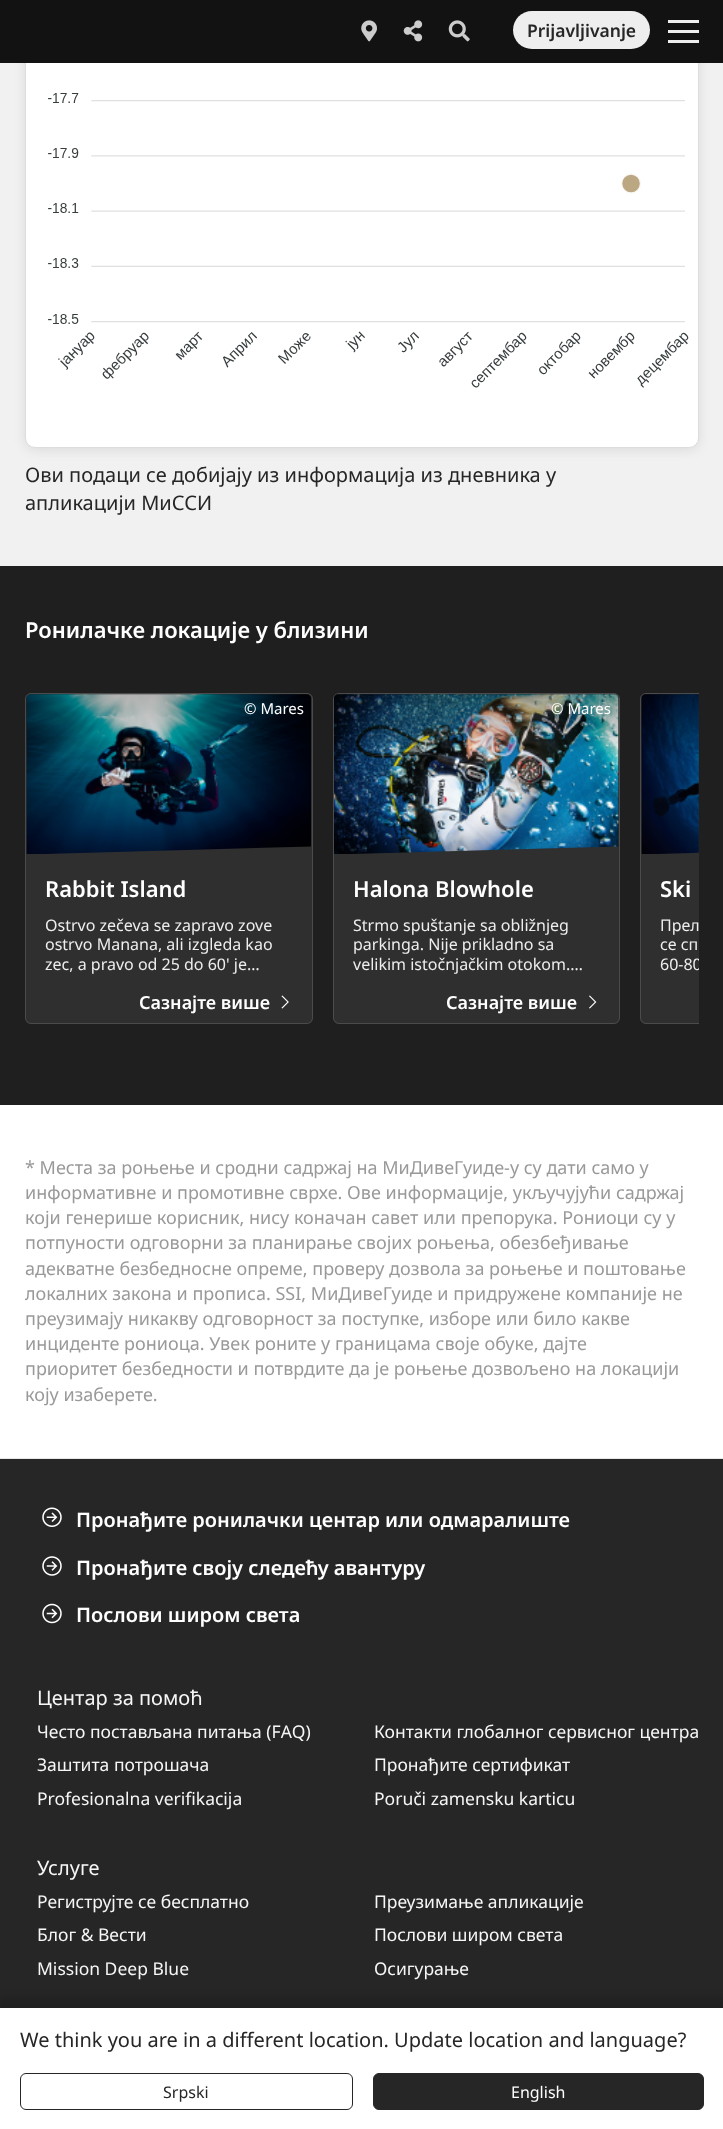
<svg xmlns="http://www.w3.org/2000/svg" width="723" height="2129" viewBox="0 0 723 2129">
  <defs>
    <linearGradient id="g1" gradientUnits="userSpaceOnUse" x1="169" y1="694" x2="169" y2="854"><stop offset="0" stop-color="#000" stop-opacity="0.3"/><stop offset="0.2" stop-color="#000" stop-opacity="0.2"/><stop offset="0.39" stop-color="#000" stop-opacity="0"/></linearGradient>
    <linearGradient id="g2" gradientUnits="userSpaceOnUse" x1="476" y1="694" x2="476" y2="854"><stop offset="0" stop-color="#000" stop-opacity="0.3"/><stop offset="0.2" stop-color="#000" stop-opacity="0.2"/><stop offset="0.39" stop-color="#000" stop-opacity="0"/></linearGradient>
    <clipPath id="clip1"><path d="M25 693h674v356H25z"/></clipPath>
    <linearGradient id="g3" gradientUnits="userSpaceOnUse" x1="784" y1="694" x2="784" y2="854"><stop offset="0" stop-color="#000" stop-opacity="0.3"/><stop offset="0.2" stop-color="#000" stop-opacity="0.2"/><stop offset="0.39" stop-color="#000" stop-opacity="0"/></linearGradient>
    <clipPath id="clip2"><path d="M660 916h39v58H660z"/></clipPath>
  </defs>
  <rect width="100%" height="100%" fill="#fff"/>
  <path d="M0 63h723v503H0z" fill="#f1f1f1"/>
  <rect x="25" y="-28" width="674" height="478" rx="10" fill="#00000017" filter="blur(6px)"/>
  <rect x="25.5" y="-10.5" width="673" height="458" rx="9.5" fill="#fff" stroke="#ddd"/>
  <path d="M0 0h723v63H0z" fill="#121212"/>
  <image x="361" y="20" width="16" height="22" href="img/1.png"/>
  <image x="403" y="20" width="20" height="22" href="img/2.png"/>
  <image x="448" y="20" width="22" height="22" href="img/3.png"/>
  <rect x="513" y="11" width="137" height="38" rx="19" fill="#eee"/>
  <path d="M668 30h31v3H668z" fill="#eee"/>
  <path d="M668 20h31v3H668z" fill="#eee"/>
  <path d="M668 40h31v3H668z" fill="#eee"/>
  <image x="48" y="93" width="641" height="295" href="img/4.png"/>
  <path d="M52.5 447.5V432.5L60 440Z" fill="#fff"/>
  <path d="M0 566h723v539H0z" fill="#1f1f1f"/>
  <rect x="25" y="693" width="288" height="331" rx="6" fill="#2f2f2f"/>
  <rect x="25.5" y="693.5" width="287" height="330" rx="5.5" fill="none" stroke="#99999945"/>
  <image x="26" y="694" width="285" height="160" href="img/5.png"/>
  <path d="M31 694H306C309 694 311 696 311 699V854H26V699C26 696 28 694 31 694Z" fill="url(#g1)"/>
  <image x="281" y="995" width="8" height="14" href="img/6.png"/>
  <rect x="333" y="693" width="287" height="331" rx="6" fill="#2f2f2f"/>
  <rect x="333.5" y="693.5" width="286" height="330" rx="5.5" fill="none" stroke="#99999945"/>
  <image x="334" y="694" width="285" height="160" href="img/7.png"/>
  <path d="M339 694H614C617 694 619 696 619 699V854H334V699C334 696 336 694 339 694Z" fill="url(#g2)"/>
  <image x="589" y="995" width="8" height="14" href="img/8.png"/>
  <path d="M646 693H699V1024H646C642.5 1024 640 1021.5 640 1018V699C640 695.5 642.5 693 646 693Z" fill="#2f2f2f"/>
  <g clip-path="url(#clip1)">
    <rect x="640.5" y="693.5" width="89" height="330" rx="5.5" fill="none" stroke="#99999945"/>
  </g>
  <image x="641" y="694" width="58" height="160" href="img/9.png"/>
  <path d="M646 694H699V854H641V699C641 696 643 694 646 694Z" fill="url(#g3)"/>
  <path d="M0 1459h723v549H0z" fill="#262626"/>
  <path d="M0 1458h723v1H0z" fill="#e7e7e7"/>
  <image x="42" y="1507" width="20" height="20" href="img/10.png"/>
  <image x="42" y="1556" width="20" height="20" href="img/11.png"/>
  <image x="42" y="1603" width="20" height="21" href="img/12.png"/>
  <path d="M-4 1998h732v130H-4z" fill="#00000026" filter="blur(4px)"/>
  <path d="M0 2008h723v121H0z" fill="#fff"/>
  <rect x="20.5" y="2073.5" width="332" height="36" rx="5.5" fill="none" stroke="#262626"/>
  <rect x="373.5" y="2073.5" width="330" height="36" rx="5.5" fill="#262626" stroke="#262626"/>
  <text x="527" y="37" font-family="Noto Sans" font-size="17.5" font-weight="600" fill="#262626">Prijavljivanje</text>
  <g font-family="Noto Sans" font-size="20" fill="#262626">
    <text x="25" y="482">Ови подаци се добијају из информација из дневника у</text>
    <text x="25" y="510">апликацији МиССИ</text>
  </g>
  <text x="25" y="638" font-family="Noto Sans" font-size="22" font-weight="600" fill="#fff">Ронилачке локације у близини</text>
  <text x="244" y="714" font-family="Noto Sans" font-size="15" fill="#fff">© Mares</text>
  <text x="45" y="897" font-family="Noto Sans" font-size="22" font-weight="600" fill="#fff">Rabbit Island</text>
  <g font-family="Noto Sans" font-size="16" fill="#eee">
    <text x="45" y="931">Ostrvo zečeva se zapravo zove</text>
    <text x="45" y="950">ostrvo Manana, ali izgleda kao</text>
    <text x="45" y="970">zec, a pravo od 25 do 60' je…</text>
  </g>
  <text x="139" y="1009" font-family="Noto Sans" font-size="18" font-weight="600" fill="#fff">Сазнајте више</text>
  <text x="551" y="714" font-family="Noto Sans" font-size="15" fill="#fff">© Mares</text>
  <text x="353" y="897" font-family="Noto Sans" font-size="22" font-weight="600" fill="#fff">Halona Blowhole</text>
  <g font-family="Noto Sans" font-size="16" fill="#eee">
    <text x="353" y="931">Strmo spuštanje sa obližnjeg</text>
    <text x="353" y="950">parkinga. Nije prikladno sa</text>
    <text x="353" y="970">velikim istočnjačkim otokom.…</text>
  </g>
  <text x="446" y="1009" font-family="Noto Sans" font-size="18" font-weight="600" fill="#fff">Сазнајте више</text>
  <text x="660" y="897" font-family="Noto Sans" font-size="22" font-weight="600" fill="#fff">Ski</text>
  <g font-family="Noto Sans" font-size="16" fill="#eee">
    <text x="660" y="931">Прел</text>
    <text x="660" y="950">се сп</text>
  </g>
  <g clip-path="url(#clip2)">
    <text x="660" y="970" font-family="Noto Sans" font-size="16" fill="#eee">60-80</text>
  </g>
  <g font-family="Noto Sans" font-size="18" fill="#999">
    <text x="25" y="1174">* Места за роњење и сродни садржај на МиДивеГуиде-у су дати само у</text>
    <text x="25" y="1199">информативне и промотивне сврхе. Ове информације, укључујући садржај</text>
    <text x="25" y="1224">који генерише корисник, нису коначан савет или препорука. Рониоци су у</text>
    <text x="25" y="1249">потпуности одговорни за планирање својих роњења, обезбеђивање</text>
    <text x="25" y="1275">адекватне безбедносне опреме, проверу дозвола за роњење и поштовање</text>
    <text x="25" y="1300">локалних закона и прописа. SSI, МиДивеГуиде и придружене компаније не</text>
    <text x="25" y="1325">преузимају никакву одговорност за поступке, изборе или било какве</text>
    <text x="25" y="1350">инциденте рониоца. Увек роните у границама своје обуке, дајте</text>
    <text x="25" y="1375">приоритет безбедности и потврдите да је роњење дозвољено на локацији</text>
    <text x="25" y="1401">коју изаберете.</text>
  </g>
  <g font-family="Noto Sans" font-size="20" font-weight="600" fill="#fff">
    <text x="76" y="1527">Пронађите ронилачки центар или одмаралиште</text>
    <text x="76" y="1575">Пронађите своју следећу авантуру</text>
    <text x="76" y="1622">Послови широм света</text>
  </g>
  <text x="37" y="1705" font-family="Noto Sans" font-size="20" fill="#f6f6f6">Центар за помоћ</text>
  <g font-family="Noto Sans" font-size="17.5" fill="#f6f6f6">
    <text x="37" y="1738">Често постављана питања (FАQ)</text>
    <text x="374" y="1738">Контакти глобалног сервисног центра</text>
    <text x="37" y="1771">Заштита потрошача</text>
    <text x="374" y="1771">Пронађите сертификат</text>
    <text x="37" y="1805">Profesionalna verifikacija</text>
    <text x="374" y="1805">Poruči zamensku karticu</text>
  </g>
  <text x="37" y="1875" font-family="Noto Sans" font-size="20" fill="#f6f6f6">Услуге</text>
  <g font-family="Noto Sans" font-size="17.5" fill="#f6f6f6">
    <text x="37" y="1908">Региструјте се бесплатно</text>
    <text x="374" y="1908">Преузимање апликације</text>
    <text x="37" y="1941">Блог &amp; Вести</text>
    <text x="374" y="1941">Послови широм света</text>
    <text x="37" y="1975">Mission Deep Blue</text>
    <text x="374" y="1975">Осигурање</text>
  </g>
  <text x="20" y="2047" font-family="Noto Sans" font-size="20" fill="#262626">We think you are in a different location. Update location and language?</text>
  <text x="163" y="2098" font-family="Noto Sans" font-size="16" fill="#262626">Srpski</text>
  <text x="511" y="2098" font-family="Noto Sans" font-size="16" fill="#fff">English</text>
</svg>
